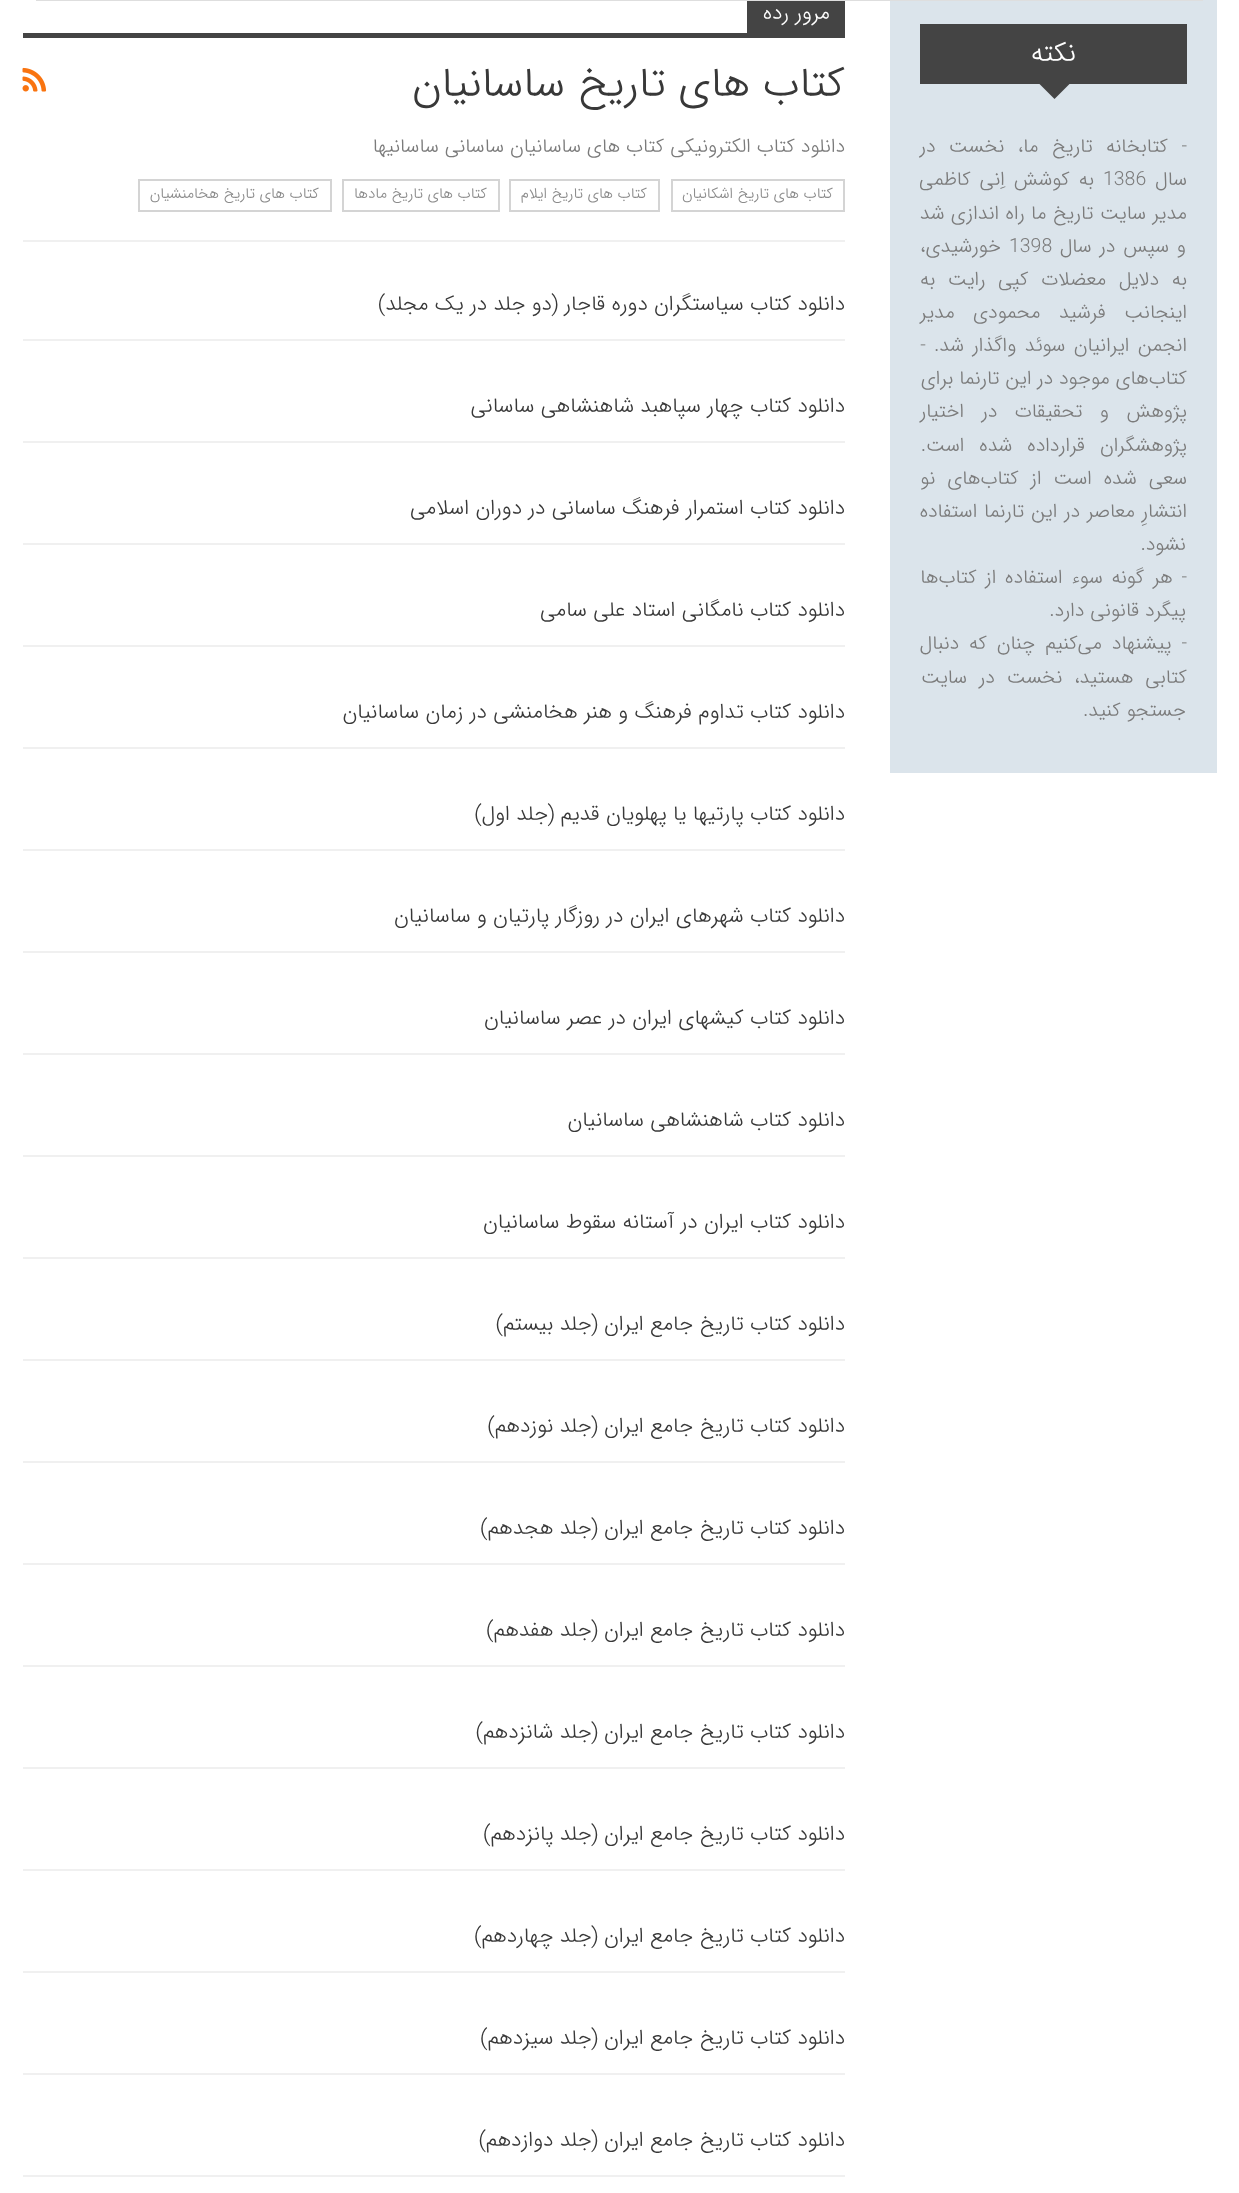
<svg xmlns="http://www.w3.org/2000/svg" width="1239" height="2193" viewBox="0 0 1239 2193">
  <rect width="100%" height="100%" fill="#fff"/>
  <path d="M890 0h327v773H890z" fill="#dbe4eb"/>
  <path d="M36 0h1167v1H36z" fill="#dedede"/>
  <path d="M920 24h267v60H920z" fill="#444"/>
  <path d="M1039.5 84H1069.5L1054.5 99Z" fill="#444"/>
  <path d="M23 240h822v2H23z" fill="#f0f0f0"/>
  <path d="M747 1h98v32H747z" fill="#444"/>
  <path d="M23 33h822v5H23z" fill="#444"/>
  <image x="22" y="67" width="25" height="25" href="img/1.png"/>
  <path d="M672 180h172v31H672z" fill="none" stroke="#d4d4d4" stroke-width="2"/>
  <path d="M510 180h149v31H510z" fill="none" stroke="#d4d4d4" stroke-width="2"/>
  <path d="M343 180h156v31H343z" fill="none" stroke="#d4d4d4" stroke-width="2"/>
  <path d="M139 180h192v31H139z" fill="none" stroke="#d4d4d4" stroke-width="2"/>
  <path d="M23 339h822v2H23z" fill="#f0f0f0"/>
  <path d="M23 441h822v2H23z" fill="#f0f0f0"/>
  <path d="M23 543h822v2H23z" fill="#f0f0f0"/>
  <path d="M23 645h822v2H23z" fill="#f0f0f0"/>
  <path d="M23 747h822v2H23z" fill="#f0f0f0"/>
  <path d="M23 849h822v2H23z" fill="#f0f0f0"/>
  <path d="M23 951h822v2H23z" fill="#f0f0f0"/>
  <path d="M23 1053h822v2H23z" fill="#f0f0f0"/>
  <path d="M23 1155h822v2H23z" fill="#f0f0f0"/>
  <path d="M23 1257h822v2H23z" fill="#f0f0f0"/>
  <path d="M23 1359h822v2H23z" fill="#f0f0f0"/>
  <path d="M23 1461h822v2H23z" fill="#f0f0f0"/>
  <path d="M23 1563h822v2H23z" fill="#f0f0f0"/>
  <path d="M23 1665h822v2H23z" fill="#f0f0f0"/>
  <path d="M23 1767h822v2H23z" fill="#f0f0f0"/>
  <path d="M23 1869h822v2H23z" fill="#f0f0f0"/>
  <path d="M23 1971h822v2H23z" fill="#f0f0f0"/>
  <path d="M23 2073h822v2H23z" fill="#f0f0f0"/>
  <path d="M23 2175h822v2H23z" fill="#f0f0f0"/>
  <text x="1076" y="61" font-family="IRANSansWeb" font-size="27" font-weight="300" direction="rtl" fill="#fff">نکته</text>
  <g font-family="IRANSansWeb" font-size="19.5" font-weight="300" direction="rtl" fill="#7b7b7b">
    <text x="1187" y="152" word-spacing="7.5">- کتابخانه تاریخ ما، نخست در</text>
    <text x="1187" y="185">سال</text>
  </g>
  <text x="1103" y="185" font-family="IRANSansWeb" font-size="19.5" font-weight="300" fill="#7b7b7b">1386</text>
  <g font-family="IRANSansWeb" font-size="19.5" font-weight="300" direction="rtl" fill="#7b7b7b">
    <text x="1094" y="185" word-spacing="3">به کوشش اِنی کاظمی</text>
    <text x="1187" y="219" word-spacing="0.5">مدیر سایت تاریخ ما راه اندازی شد</text>
    <text x="1186" y="252" word-spacing="2">و سپس در سال</text>
  </g>
  <text x="1009" y="252" font-family="IRANSansWeb" font-size="19.5" font-weight="300" fill="#7b7b7b">1398</text>
  <g font-family="IRANSansWeb" font-size="19.5" font-weight="300" direction="rtl" fill="#7b7b7b">
    <text x="1001" y="252">خورشیدی،</text>
    <text x="1187" y="285" word-spacing="6.75">به دلایل معضلات کپی رایت به</text>
    <text x="1187" y="318" word-spacing="12.5">اینجانب فرشید محمودی مدیر</text>
    <text x="1187" y="351" word-spacing="2.5">انجمن ایرانیان سوئد واگذار شد. -</text>
    <text x="1187" y="384">کتاب‌های موجود در این تارنما برای</text>
    <text x="1187" y="417" word-spacing="11.5">پژوهش و تحقیقات در اختیار</text>
    <text x="1187" y="451" word-spacing="9">پژوهشگران قرارداده شده است.</text>
    <text x="1187" y="484" word-spacing="6">سعی شده است از کتاب‌های نو</text>
    <text x="1187" y="517" word-spacing="1">انتشارِ معاصر در این تارنما استفاده</text>
    <text x="1186" y="550">نشود.</text>
    <text x="1187" y="583" word-spacing="2.75">- هر گونه سوء استفاده از کتاب‌ها</text>
    <text x="1186" y="616">پیگرد قانونی دارد.</text>
    <text x="1187" y="649" word-spacing="4">- پیشنهاد می‌کنیم چنان که دنبال</text>
    <text x="1187" y="683" word-spacing="6">کتابی هستید، نخست در سایت</text>
    <text x="1186" y="716">جستجو کنید.</text>
  </g>
  <text x="830" y="19" font-family="IRANSansWeb" font-size="21" font-weight="300" direction="rtl" fill="#fff">مرور رده</text>
  <text x="845" y="96" font-family="IRANSansWeb" font-size="42" font-weight="300" direction="rtl" fill="#383838">کتاب های تاریخ ساسانیان</text>
  <text x="845" y="152" font-family="IRANSansWeb" font-size="19.5" font-weight="300" direction="rtl" fill="#7b7b7b">دانلود کتاب الکترونیکی کتاب های ساسانیان ساسانی ساسانیها</text>
  <g font-family="IRANSansWeb" font-size="15" font-weight="300" direction="rtl" fill="#8b8b8b">
    <text x="833" y="198">کتاب های تاریخ اشکانیان</text>
    <text x="647" y="198">کتاب های تاریخ ایلام</text>
    <text x="487" y="198">کتاب های تاریخ مادها</text>
    <text x="319" y="198">کتاب های تاریخ هخامنشیان</text>
  </g>
  <g font-family="IRANSansWeb" font-size="21" font-weight="300" direction="rtl" fill="#383838">
    <text x="845" y="310">دانلود کتاب سیاستگران دوره قاجار (دو جلد در یک مجلد)</text>
    <text x="845" y="412">دانلود کتاب چهار سپاهبد شاهنشاهی ساسانی</text>
    <text x="845" y="514">دانلود کتاب استمرار فرهنگ ساسانی در دوران اسلامی</text>
    <text x="845" y="616">دانلود کتاب نامگانی استاد علی سامی</text>
    <text x="845" y="718">دانلود کتاب تداوم فرهنگ و هنر هخامنشی در زمان ساسانیان</text>
    <text x="845" y="820">دانلود کتاب پارتیها یا پهلویان قدیم (جلد اول)</text>
    <text x="845" y="922">دانلود کتاب شهرهای ایران در روزگار پارتیان و ساسانیان</text>
    <text x="845" y="1024">دانلود کتاب کیشهای ایران در عصر ساسانیان</text>
    <text x="845" y="1126">دانلود کتاب شاهنشاهی ساسانیان</text>
    <text x="845" y="1228">دانلود کتاب ایران در آستانه سقوط ساسانیان</text>
    <text x="845" y="1330">دانلود کتاب تاریخ جامع ایران (جلد بیستم)</text>
    <text x="845" y="1432">دانلود کتاب تاریخ جامع ایران (جلد نوزدهم)</text>
    <text x="845" y="1534">دانلود کتاب تاریخ جامع ایران (جلد هجدهم)</text>
    <text x="845" y="1636">دانلود کتاب تاریخ جامع ایران (جلد هفدهم)</text>
    <text x="845" y="1738">دانلود کتاب تاریخ جامع ایران (جلد شانزدهم)</text>
    <text x="845" y="1840">دانلود کتاب تاریخ جامع ایران (جلد پانزدهم)</text>
    <text x="845" y="1942">دانلود کتاب تاریخ جامع ایران (جلد چهاردهم)</text>
    <text x="845" y="2044">دانلود کتاب تاریخ جامع ایران (جلد سیزدهم)</text>
    <text x="845" y="2146">دانلود کتاب تاریخ جامع ایران (جلد دوازدهم)</text>
  </g>
</svg>
